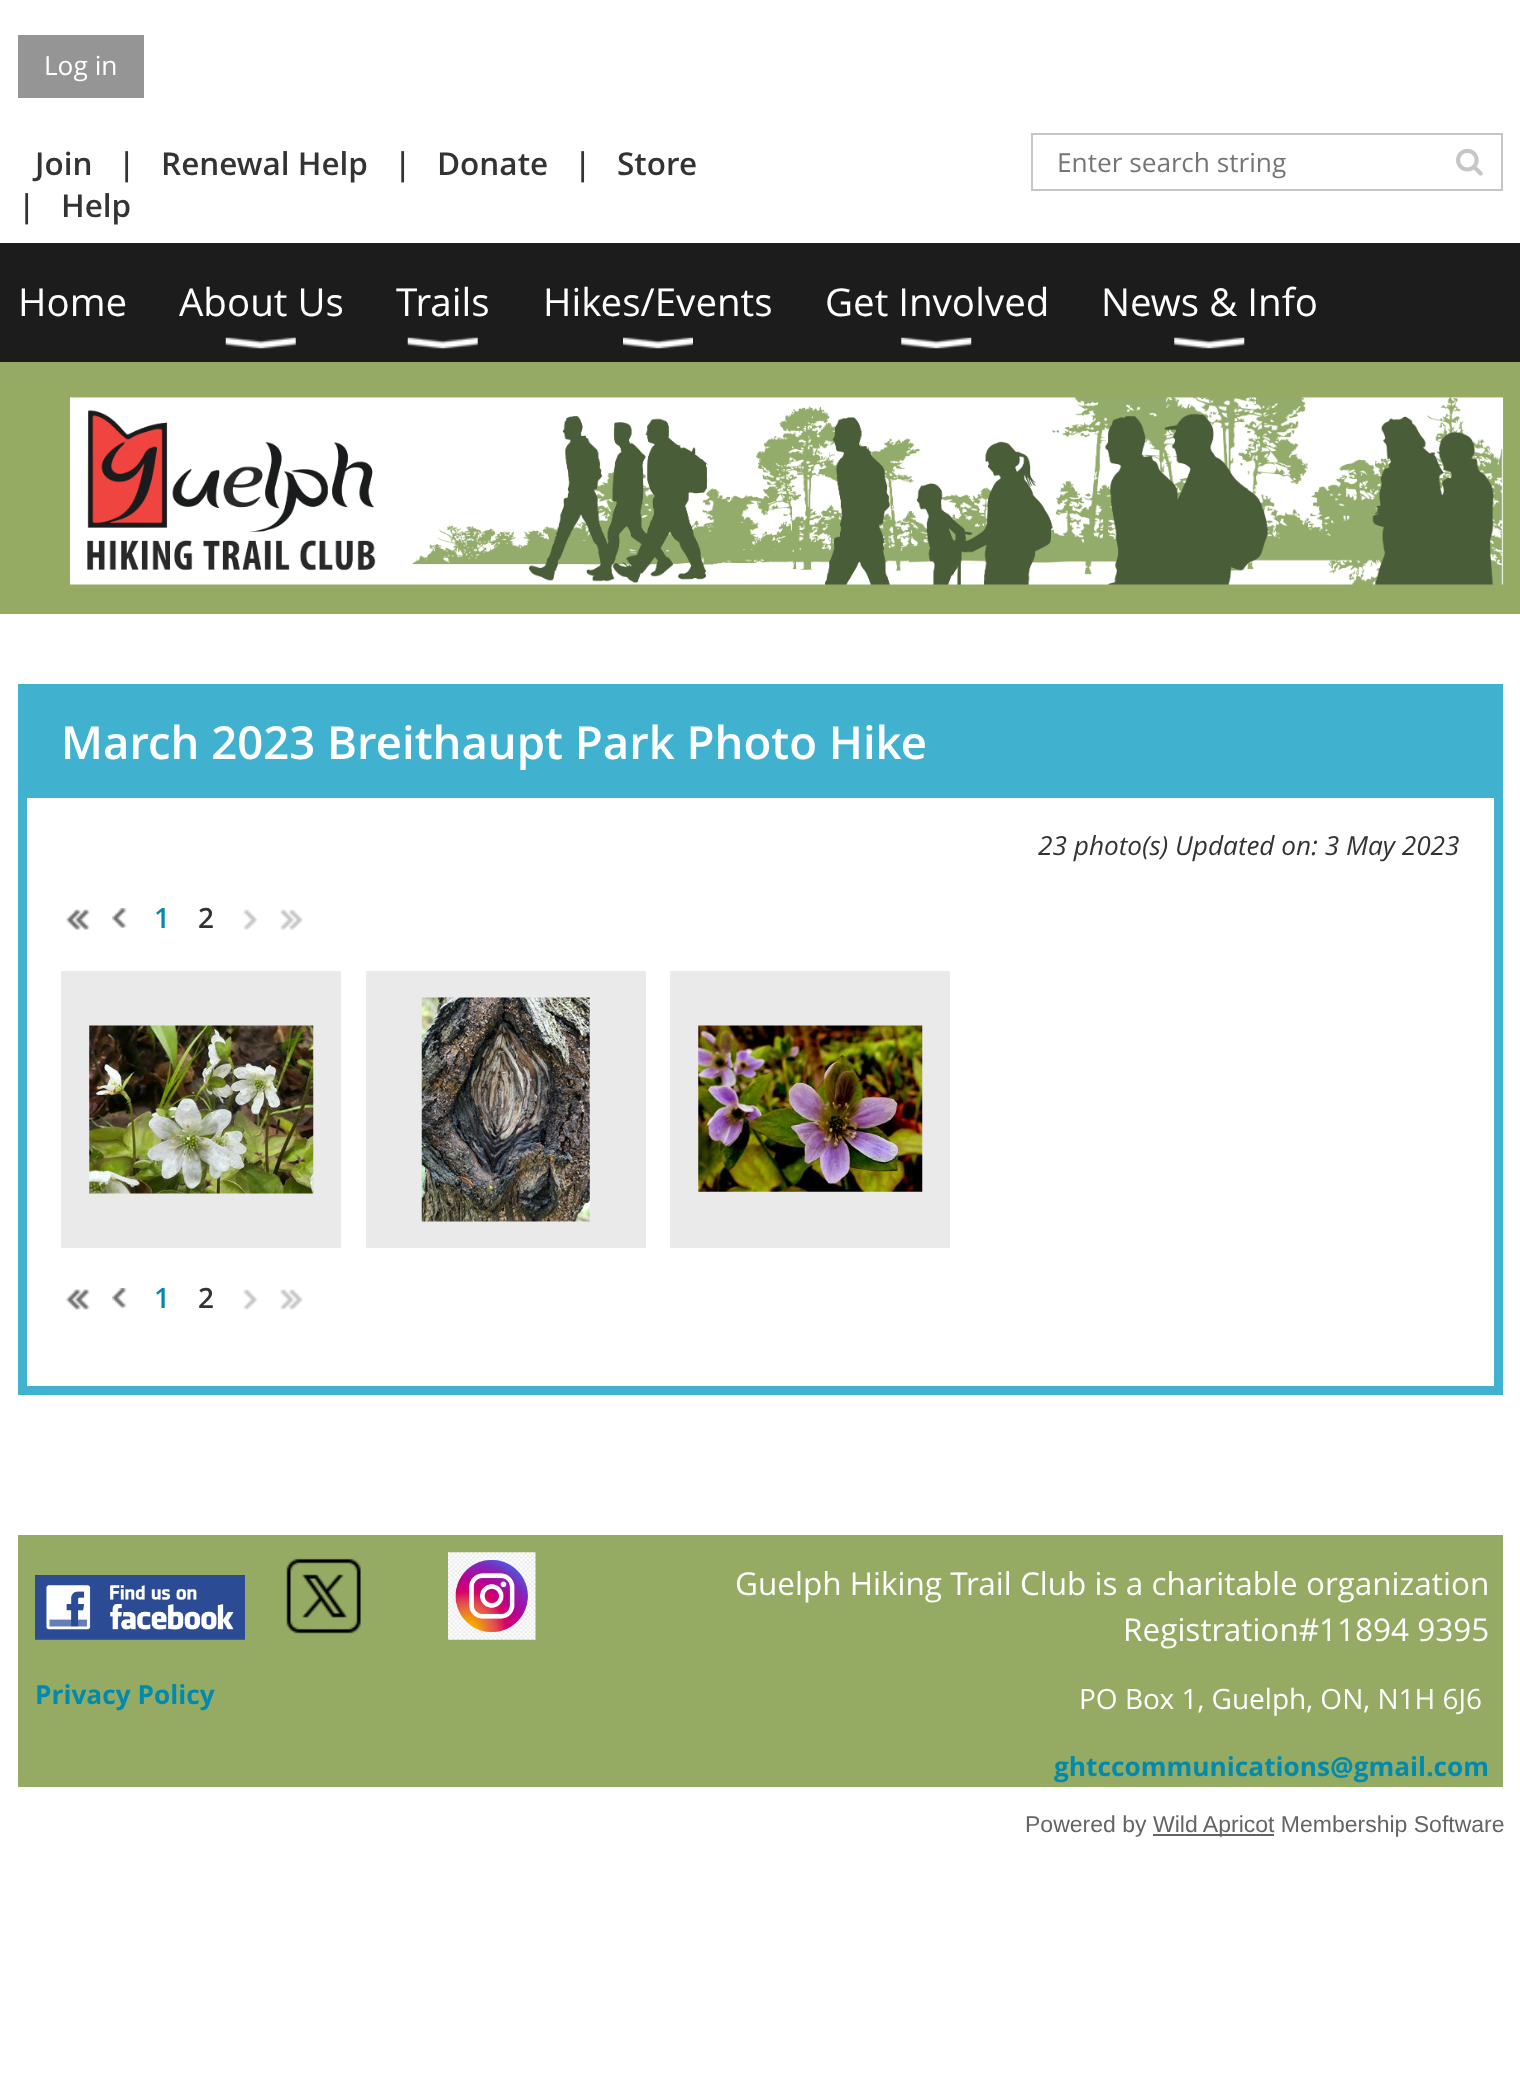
<svg xmlns="http://www.w3.org/2000/svg" width="1520" height="2092" viewBox="0 0 1520 2092">
  <rect width="100%" height="100%" fill="#fff"/>
  <path d="M18 35h126v63H18z" fill="#959595"/>
  <path d="M1032 134h470v56H1032z" fill="none" stroke="#c6c6c6" stroke-width="2"/>
  <image x="1456" y="148" width="27" height="28" href="img/1.png"/>
  <path d="M0 243h1520v119H0z" fill="#1c1c1c"/>
  <image x="225" y="337" width="71" height="12" href="img/2.png"/>
  <image x="407" y="337" width="71" height="12" href="img/2.png"/>
  <image x="623" y="337" width="70" height="12" href="img/3.png"/>
  <image x="901" y="337" width="71" height="12" href="img/4.png"/>
  <image x="1174" y="337" width="71" height="12" href="img/4.png"/>
  <path d="M0 362h1520v252H0z" fill="#95ab63"/>
  <image x="70" y="397" width="1434" height="188" href="img/5.png"/>
  <path d="M22.5 688.5h1476v702H22.5z" fill="none" stroke="#40b2cf" stroke-width="9"/>
  <path d="M27 693h1467v105H27z" fill="#40b2cf"/>
  <image x="66" y="909" width="24" height="21" href="img/6.png"/>
  <image x="112" y="908" width="15" height="20" href="img/7.png"/>
  <image x="243" y="909" width="15" height="21" href="img/8.png"/>
  <image x="280" y="909" width="23" height="21" href="img/9.png"/>
  <path d="M61 971h280v277H61z" fill="#eaeaea"/>
  <image x="89" y="1025" width="225" height="169" href="img/10.png"/>
  <path d="M366 971h280v277H366z" fill="#eaeaea"/>
  <image x="421" y="997" width="169" height="225" href="img/11.png"/>
  <path d="M670 971h280v277H670z" fill="#eaeaea"/>
  <image x="698" y="1025" width="225" height="167" href="img/12.png"/>
  <image x="66" y="1289" width="24" height="21" href="img/13.png"/>
  <image x="112" y="1288" width="15" height="20" href="img/14.png"/>
  <image x="243" y="1289" width="15" height="21" href="img/15.png"/>
  <image x="279" y="1289" width="24" height="21" href="img/16.png"/>
  <path d="M18 1535h1485v252H18z" fill="#95ab63"/>
  <image x="35" y="1575" width="210" height="65" href="img/17.png"/>
  <image x="286" y="1558" width="75" height="76" href="img/18.png"/>
  <image x="448" y="1552" width="88" height="88" href="img/19.png"/>
  <path d="M1153 1834h121v2H1153z" fill="#646464"/>
  <text x="44" y="75" font-family="Open Sans" font-size="26.25" fill="#fff">Log in</text>
  <g font-family="Open Sans" font-size="31.5" font-weight="600" fill="#333">
    <text x="35" y="175">Join</text>
    <text x="118" y="175">|</text>
    <text x="161" y="175">Renewal Help</text>
    <text x="394" y="175">|</text>
    <text x="437" y="175">Donate</text>
    <text x="574" y="175">|</text>
    <text x="617" y="175">Store</text>
    <text x="18" y="217">|</text>
    <text x="61" y="217">Help</text>
  </g>
  <text x="1057" y="172" font-family="Open Sans" font-size="26.25" fill="#757575">Enter search string</text>
  <g font-family="Open Sans" font-size="38.5" fill="#fff">
    <text x="18" y="316">Home</text>
    <text x="179" y="316">About Us</text>
    <text x="396" y="316">Trails</text>
    <text x="543" y="316">Hikes/Events</text>
    <text x="825" y="316">Get Involved</text>
    <text x="1101" y="316">News &amp; Info</text>
  </g>
  <text x="61" y="759" font-family="Open Sans" font-size="45.5" font-weight="600" fill="#fff">March 2023 Breithaupt Park Photo Hike</text>
  <text x="1038" y="855" font-family="Open Sans" font-size="26.25" font-style="italic" fill="#333">23 photo(s) Updated on: 3 May 2023</text>
  <text x="154" y="928" font-family="Open Sans" font-size="28" font-weight="600" fill="#008bae">1</text>
  <text x="198" y="928" font-family="Open Sans" font-size="28" font-weight="600" fill="#333">2</text>
  <text x="154" y="1308" font-family="Open Sans" font-size="28" font-weight="600" fill="#008bae">1</text>
  <text x="198" y="1308" font-family="Open Sans" font-size="28" font-weight="600" fill="#333">2</text>
  <text x="35" y="1704" font-family="Open Sans" font-size="26.25" font-weight="bold" fill="#008bae">Privacy Policy</text>
  <g font-family="Open Sans" font-size="31.5" fill="#fff">
    <text x="735" y="1595">Guelph Hiking Trail Club is a charitable organization</text>
    <text x="1123" y="1641">Registration#11894 9395</text>
  </g>
  <text x="1079" y="1709" font-family="Open Sans" font-size="28" fill="#fff">PO Box 1, Guelph, ON, N1H 6J6</text>
  <text x="1054" y="1776" font-family="Open Sans" font-size="26.25" font-weight="bold" fill="#008bae">ghtccommunications@gmail.com</text>
  <g font-family="Liberation Sans" font-size="23" fill="#646464">
    <text x="1025" y="1832">Powered by</text>
    <text x="1153" y="1832">Wild Apricot Membership Software</text>
  </g>
</svg>
